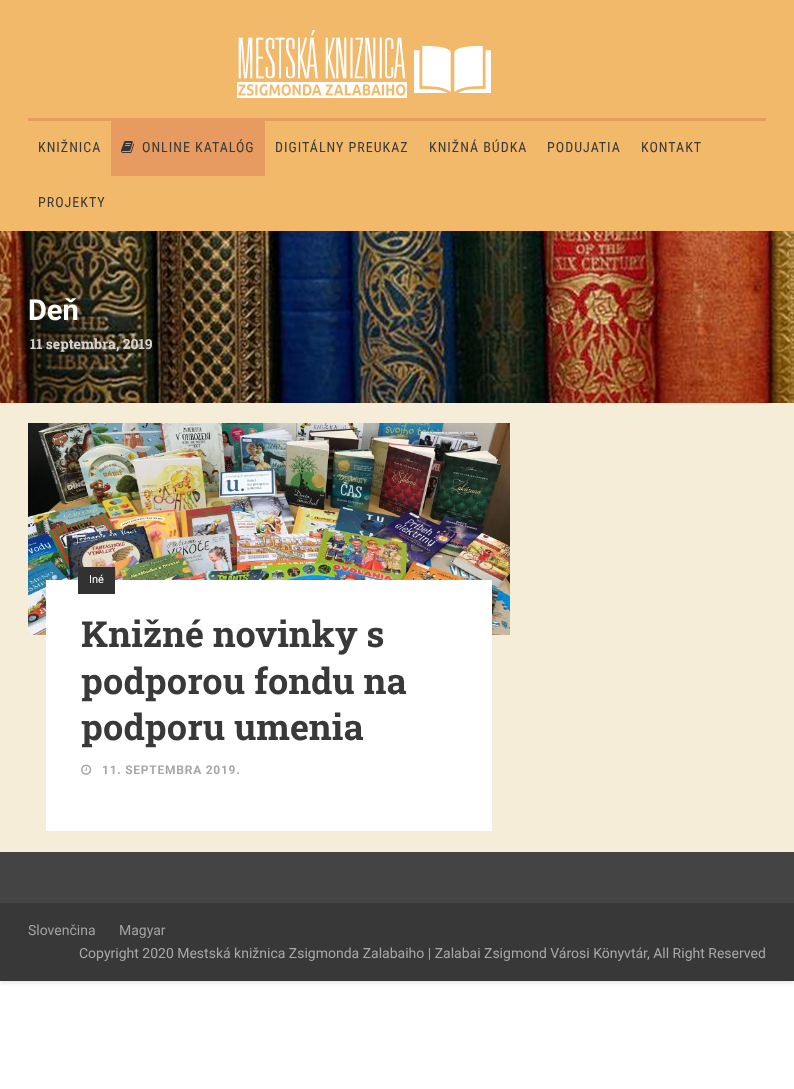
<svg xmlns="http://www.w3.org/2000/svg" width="794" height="1089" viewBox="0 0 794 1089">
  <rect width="100%" height="100%" fill="#fff"/>
  <path d="M0 1h794v981H0z" fill="#00000026" filter="blur(2.5px)"/>
  <path d="M0 0h794v231H0z" fill="#f3b96a"/>
  <image x="237" y="30" width="254" height="68" href="img/1.png"/>
  <path d="M28 118h738v3H28z" fill="#e79b60"/>
  <path d="M111 121h154v55H111z" fill="#e79b60"/>
  <image x="121" y="141" width="13" height="12" href="img/2.png"/>
  <image x="0" y="231" width="794" height="172" href="img/3.png"/>
  <path d="M0 403h794v449H0z" fill="#f5edd8"/>
  <image x="28" y="423" width="482" height="212" href="img/4.png"/>
  <path d="M46 580h446v251H46z" fill="#fff"/>
  <path d="M78 567h37v27H78z" fill="#323232"/>
  <image x="81" y="764" width="11" height="11" href="img/5.png"/>
  <path d="M0 852h794v51H0z" fill="#444"/>
  <path d="M0 903h794v78H0z" fill="#383838"/>
  <g font-family="Roboto Condensed" font-size="14" letter-spacing="1" fill="#393939">
    <text x="38" y="152">KNIŽNICA</text>
    <text x="142" y="152">ONLINE KATALÓG</text>
    <text x="275" y="152">DIGITÁLNY PREUKAZ</text>
    <text x="429" y="152">KNIŽNÁ BÚDKA</text>
    <text x="547" y="152">PODUJATIA</text>
    <text x="641" y="152">KONTAKT</text>
    <text x="38" y="207">PROJEKTY</text>
  </g>
  <text x="28" y="320" font-family="Roboto" font-size="29" font-weight="bold" fill="#fff">Deň</text>
  <text x="30" y="349" font-family="Roboto Slab" font-size="14" font-weight="bold" fill="#d4d4d4">11 septembra, 2019</text>
  <text x="89" y="583" font-family="Roboto" font-size="11" fill="#fff">Iné</text>
  <g font-family="Roboto Slab" font-size="36" font-weight="bold" fill="#393939">
    <text x="81" y="647">Knižné novinky s</text>
    <text x="81" y="694">podporou fondu na</text>
    <text x="81" y="740">podporu umenia</text>
  </g>
  <text x="102" y="774" font-family="Roboto" font-size="12" font-weight="bold" letter-spacing="0.75" fill="#a8a8a8">11. SEPTEMBRA 2019.</text>
  <g font-family="Roboto" font-size="14" fill="#a2a2a2">
    <text x="28" y="935">Slovenčina</text>
    <text x="119" y="935">Magyar</text>
  </g>
  <text x="79" y="958" font-family="Roboto" font-size="14" fill="#a8a8a8">Copyright 2020 Mestská knižnica Zsigmonda Zalabaiho | Zalabai Zsigmond Városi Könyvtár, All Right Reserved</text>
</svg>
